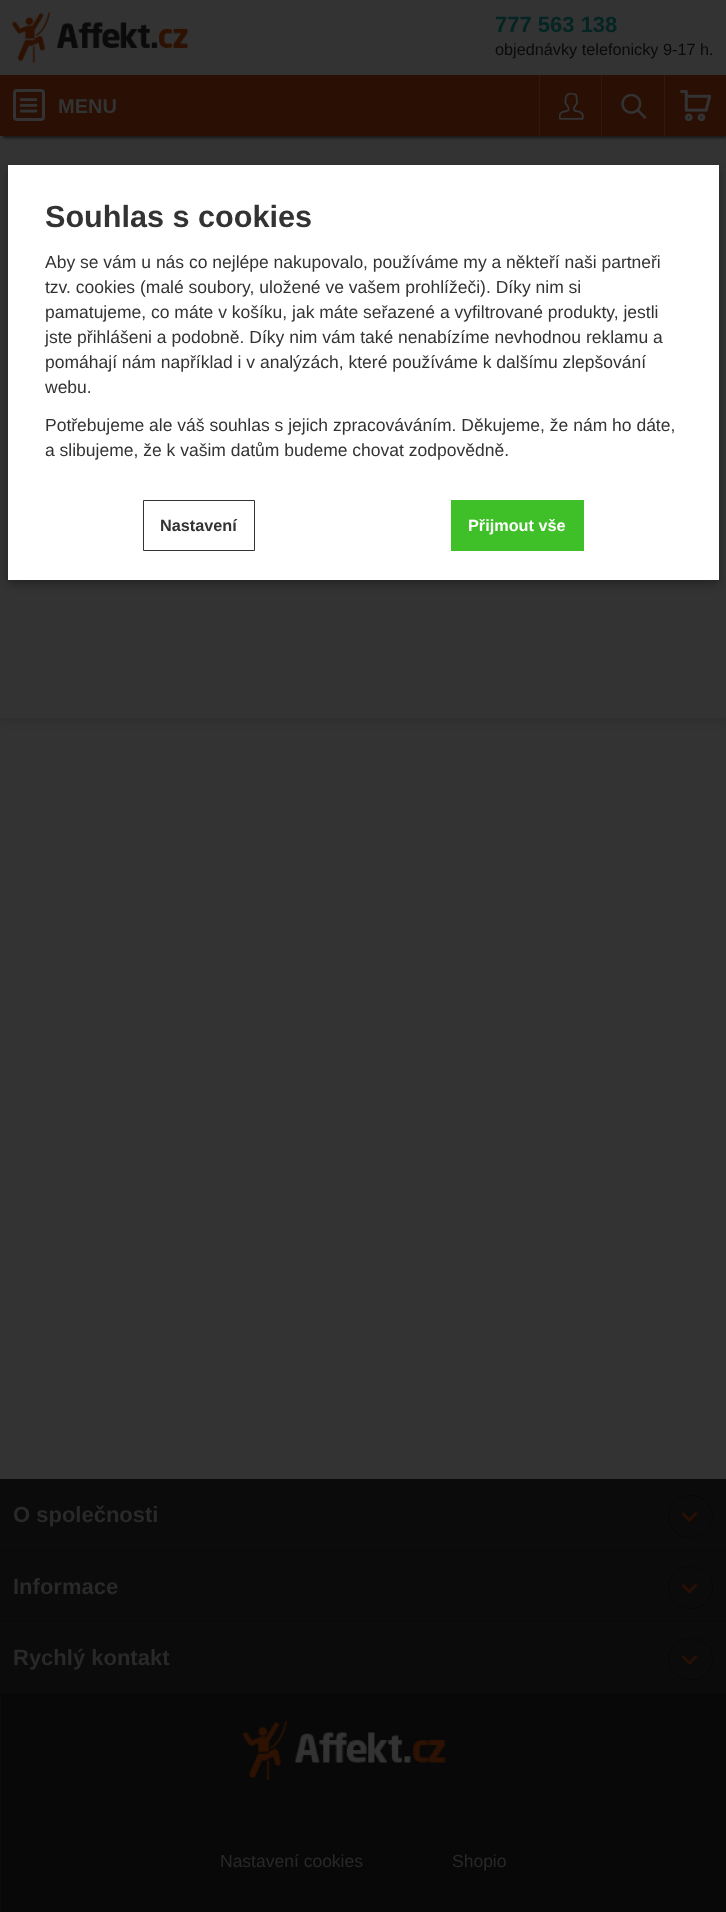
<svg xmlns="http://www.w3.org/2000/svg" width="726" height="1912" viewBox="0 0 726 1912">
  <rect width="100%" height="100%" fill="#333"/>
  <image x="12" y="12" width="176" height="51" href="img/1.png"/>
  <path d="M0 136h726v582H0z" fill="#00000033" filter="blur(6px)"/>
  <path d="M0 136h726v582H0z" fill="#333"/>
  <path d="M3 79h723v59H3z" fill="#00000080" filter="blur(1px)"/>
  <path d="M0 75h726v61H0z" fill="#2a1004"/>
  <rect x="14.5" y="90.5" width="29" height="29" rx="2.5" fill="none" stroke="#333" stroke-width="3"/>
  <image x="20" y="98" width="18" height="15" href="img/2.png"/>
  <path d="M539 75h1v61H539z" fill="#2d1a12"/>
  <image x="559" y="93" width="25" height="27" href="img/3.png"/>
  <path d="M601 75h1v61H601z" fill="#2d1a12"/>
  <image x="621" y="94" width="25" height="25" href="img/4.png"/>
  <path d="M664 75h1v61H664z" fill="#2d1a12"/>
  <image x="680" y="90" width="31" height="31" href="img/5.png"/>
  <path d="M0 1479h726v433H0z" fill="#0b0b0b"/>
  <rect x="668.5" y="1495.5" width="44" height="42" rx="21" fill="none" stroke="#080808"/>
  <path d="M695.5 1512L697.5 1514L689.5 1522L687.5 1520Z" fill="#2a1004"/>
  <path d="M683 1512L691 1520L689.5 1522L681.5 1514Z" fill="#2a1004"/>
  <path d="M1 1550h725v1H1z" fill="#080808"/>
  <rect x="668.5" y="1566.5" width="44" height="42" rx="21" fill="none" stroke="#080808"/>
  <path d="M695.5 1583.5L697.5 1585.5L689.5 1593.5L687.5 1591.5Z" fill="#2a1004"/>
  <path d="M683 1583.5L691 1591.5L689.5 1593.5L681.5 1585.5Z" fill="#2a1004"/>
  <path d="M1 1621h725v1H1z" fill="#080808"/>
  <rect x="668.5" y="1638.5" width="44" height="41" rx="20.5" fill="none" stroke="#080808"/>
  <path d="M695.5 1655L697.5 1657L689.5 1665L687.5 1663Z" fill="#2a1004"/>
  <path d="M683 1655L691 1663L689.5 1665L681.5 1657Z" fill="#2a1004"/>
  <path d="M1 1693h725v219H1z" fill="#080808"/>
  <image x="243" y="1721" width="203" height="59" href="img/6.png"/>
  <path d="M8 169h711v415H8z" fill="#0000004d" filter="blur(4.5px)"/>
  <path d="M8 165h711v415H8z" fill="#fff"/>
  <path d="M143.5 500.5h111v50H143.5z" fill="none" stroke="#333"/>
  <path d="M451 500h133v51H451z" fill="#3fbf28"/>
  <text x="495" y="32" font-family="Liberation Sans" font-size="22" font-weight="bold" fill="#052524">777 563 138</text>
  <text x="495" y="55" font-family="Liberation Sans" font-size="16.25" fill="#0a0a0a">objednávky telefonicky 9-17 h.</text>
  <text x="58" y="113" font-family="Liberation Sans" font-size="20" font-weight="bold" fill="#333">MENU</text>
  <g font-family="Liberation Sans" font-size="22" font-weight="bold" fill="#292929">
    <text x="13" y="1522">O společnosti</text>
    <text x="13" y="1594">Informace</text>
    <text x="13" y="1665">Rychlý kontakt</text>
  </g>
  <g font-family="Liberation Sans" font-size="17.5" fill="#292929">
    <text x="220" y="1867">Nastavení cookies</text>
    <text x="452" y="1867">Shopio</text>
  </g>
  <text x="45" y="227" font-family="Liberation Sans" font-size="30.6" font-weight="bold" fill="#333">Souhlas s cookies</text>
  <g font-family="Liberation Sans" font-size="17.5" fill="#333">
    <text x="45" y="268">Aby se vám u nás co nejlépe nakupovalo, používáme my a někteří naši partneři</text>
    <text x="45" y="293">tzv. cookies (malé soubory, uložené ve vašem prohlížeči). Díky nim si</text>
    <text x="45" y="318">pamatujeme, co máte v košíku, jak máte seřazené a vyfiltrované produkty, jestli</text>
    <text x="45" y="343">jste přihlášeni a podobně. Díky nim vám také nenabízíme nevhodnou reklamu a</text>
    <text x="45" y="368">pomáhají nám například i v analýzách, které používáme k dalšímu zlepšování</text>
    <text x="45" y="393">webu.</text>
    <text x="45" y="431">Potřebujeme ale váš souhlas s jejich zpracováváním. Děkujeme, že nám ho dáte,</text>
    <text x="45" y="456">a slibujeme, že k vašim datům budeme chovat zodpovědně.</text>
  </g>
  <text x="160" y="531" font-family="Liberation Sans" font-size="16.25" font-weight="bold" fill="#333">Nastavení</text>
  <text x="468" y="531" font-family="Liberation Sans" font-size="16.25" font-weight="bold" fill="#fff">Přijmout vše</text>
</svg>
